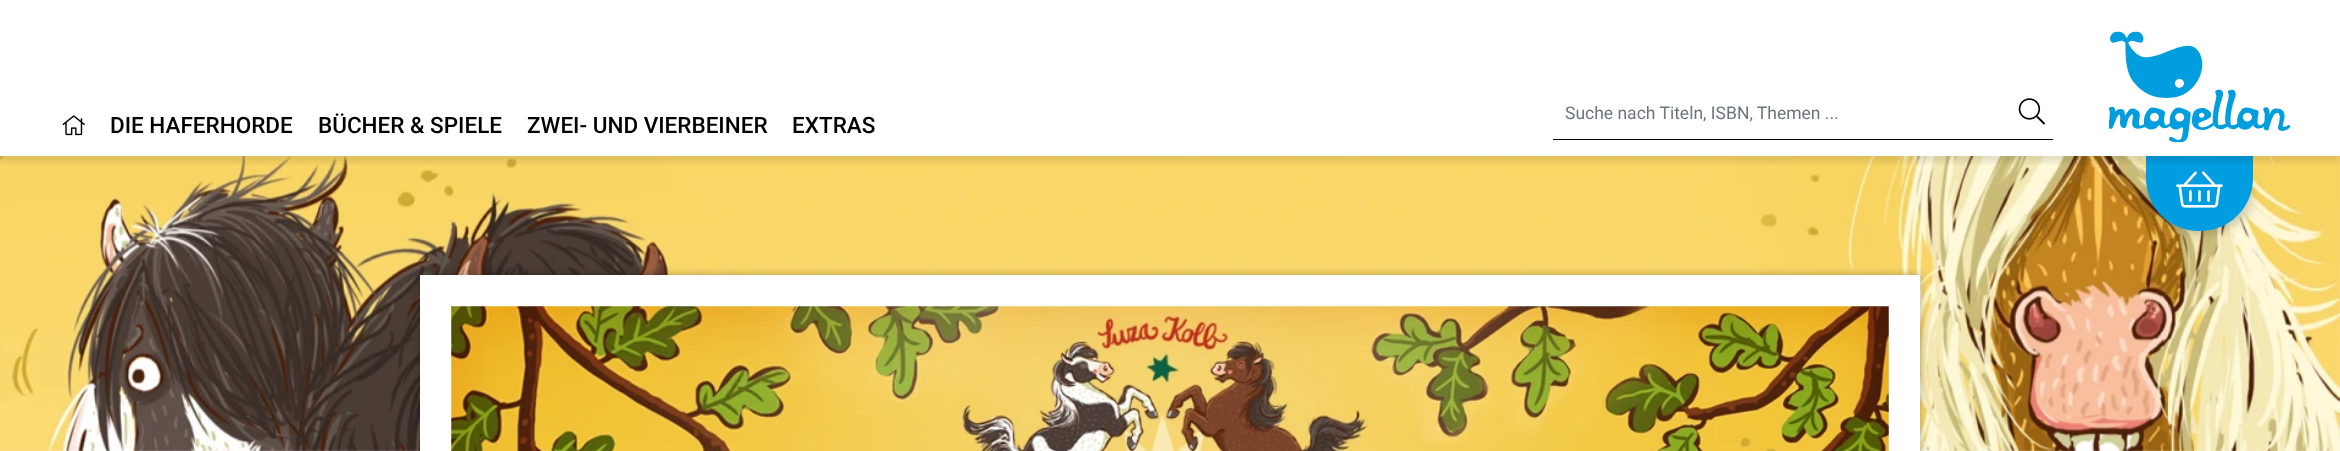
<svg xmlns="http://www.w3.org/2000/svg" width="2340" height="451" viewBox="0 0 2340 451">
  <defs>
    <clipPath id="clip1"><path d="M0 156h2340v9H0z"/></clipPath>
  </defs>
  <rect width="100%" height="100%" fill="#fff"/>
  <image x="62" y="115" width="23" height="21" href="img/1.png"/>
  <path d="M1553 139h500v1H1553z" fill="#000"/>
  <image x="2018" y="98" width="27" height="27" href="img/2.png"/>
  <image x="2109" y="31" width="181" height="112" href="img/3.png"/>
  <image x="0" y="156" width="2340" height="295" href="img/5.png"/>
  <rect x="2146" y="160" width="107" height="75" rx="53" fill="#00000029" filter="blur(4px)"/>
  <path d="M2146 156H2253V178C2253 207.5 2229.5 231 2200 231H2199C2169.5 231 2146 207.5 2146 178Z" fill="#009de0"/>
  <image x="2176" y="171" width="47" height="37" href="img/4.png"/>
  <g clip-path="url(#clip1)">
    <path d="M0 153h2340v7H0z" fill="#00000029" filter="blur(4px)"/>
  </g>
  <path d="M420 275h1500v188H420z" fill="#0000004d" filter="blur(4px)"/>
  <path d="M420 275h1500v176H420z" fill="#fff"/>
  <image x="451" y="306" width="1438" height="145" href="img/6.png"/>
  <g font-family="Roboto" font-size="22.5" font-weight="500" fill="#000">
    <text x="110" y="133">DIE HAFERHORDE</text>
    <text x="318" y="133">BÜCHER &amp; SPIELE</text>
    <text x="527" y="133">ZWEI- UND VIERBEINER</text>
    <text x="792" y="133">EXTRAS</text>
  </g>
  <text x="1565" y="119" font-family="Roboto" font-size="17.5" fill="#6c757d">Suche nach Titeln, ISBN, Themen ...</text>
</svg>
